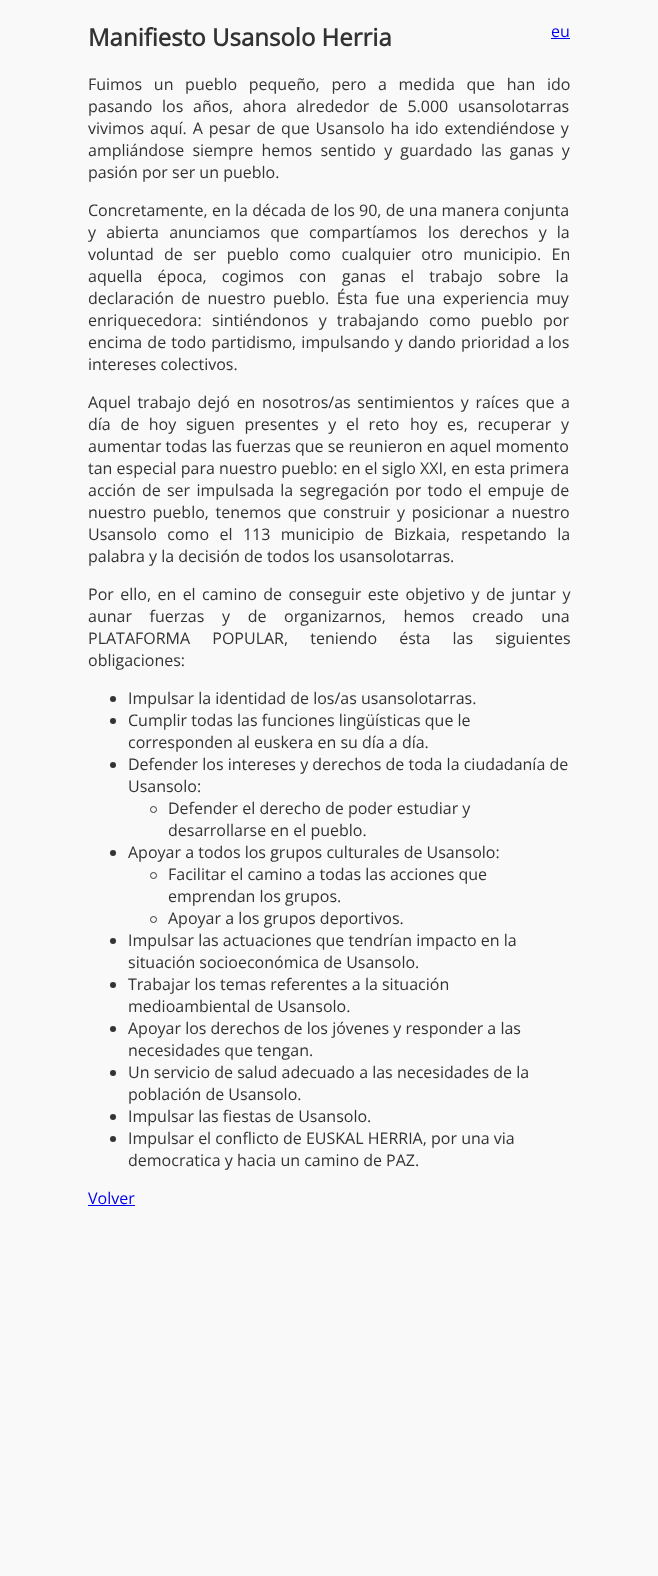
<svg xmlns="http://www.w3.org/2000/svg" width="658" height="1576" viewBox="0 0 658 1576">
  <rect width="100%" height="100%" fill="#f9f9f9"/>
  <path d="M551 38h19v1H551z" fill="#00e"/>
  <circle cx="113" cy="699" r="3" fill="#333"/>
  <circle cx="113" cy="721" r="3" fill="#333"/>
  <circle cx="113" cy="765" r="3" fill="#333"/>
  <circle cx="153.5" cy="809.5" r="3" fill="none" stroke="#333"/>
  <circle cx="113" cy="853" r="3" fill="#333"/>
  <circle cx="153.5" cy="875.5" r="3" fill="none" stroke="#333"/>
  <circle cx="153.5" cy="919.5" r="3" fill="none" stroke="#333"/>
  <circle cx="113" cy="941" r="3" fill="#333"/>
  <circle cx="113" cy="985" r="3" fill="#333"/>
  <circle cx="113" cy="1029" r="3" fill="#333"/>
  <circle cx="113" cy="1073" r="3" fill="#333"/>
  <circle cx="113" cy="1117" r="3" fill="#333"/>
  <circle cx="113" cy="1139" r="3" fill="#333"/>
  <path d="M88 1205h47v1H88z" fill="#00e"/>
  <text x="88" y="46" font-family="Open Sans" font-size="24" font-weight="bold" fill="#333">Manifiesto Usansolo Herria</text>
  <text x="551" y="37" font-family="Open Sans" font-size="16" fill="#00e">eu</text>
  <g font-family="Open Sans" font-size="16" fill="#333">
    <text x="88" y="90" word-spacing="7.5">Fuimos un pueblo pequeño, pero a medida que han ido</text>
    <text x="88" y="112" word-spacing="5.5">pasando los años, ahora alrededor de 5.000 usansolotarras</text>
    <text x="88" y="134" word-spacing="1.75">vivimos aquí. A pesar de que Usansolo ha ido extendiéndose y</text>
    <text x="88" y="156" word-spacing="4">ampliándose siempre hemos sentido y guardado</text>
    <text x="481" y="156" word-spacing="4">las ganas y</text>
    <text x="88" y="178">pasión por ser un pueblo.</text>
    <text x="88" y="216" word-spacing="0.1">Concretamente, en la década de los 90, de una manera conjunta</text>
    <text x="88" y="238" word-spacing="6">y abierta anunciamos que compartíamos</text>
    <text x="428" y="238" word-spacing="6">los derechos y la</text>
    <text x="88" y="260" word-spacing="6.25">voluntad de ser pueblo como cualquier otro municipio. En</text>
    <text x="88" y="282" word-spacing="11">aquella época, cogimos con</text>
    <text x="342" y="282" word-spacing="11">ganas el trabajo sobre la</text>
    <text x="88" y="304" word-spacing="3.25">declaración de nuestro pueblo. Ésta fue una experiencia muy</text>
    <text x="88" y="326">enriquecedora:</text>
    <text x="212" y="326" word-spacing="6">sintiéndonos y trabajando como pueblo por</text>
    <text x="88" y="348" word-spacing="1">encima de todo partidismo, impulsando y dando prioridad a</text>
    <text x="548" y="348">los</text>
    <text x="88" y="370">intereses colectivos.</text>
    <text x="88" y="408" word-spacing="2.5">Aquel trabajo dejó en nosotros/as sentimientos y raíces que a</text>
    <text x="88" y="430" word-spacing="5.5">día de hoy siguen presentes y el reto</text>
    <text x="410" y="430" word-spacing="5.5">hoy es, recuperar y</text>
    <text x="88" y="452">aumentar todas las fuerzas que se reunieron en aquel momento</text>
    <text x="88" y="474">tan especial para nuestro pueblo: en el siglo XXI, en esta primera</text>
    <text x="88" y="496" word-spacing="2.1">acción de ser impulsada la segregación por todo el empuje de</text>
    <text x="88" y="518" word-spacing="2.5">nuestro pueblo, tenemos que construir y posicionar a nuestro</text>
    <text x="88" y="540" word-spacing="6.25">Usansolo como el 113 municipio de Bizkaia,</text>
    <text x="461" y="540" word-spacing="6.25">respetando la</text>
    <text x="88" y="562">palabra y la decisión de todos los usansolotarras.</text>
    <text x="88" y="600" word-spacing="2.25">Por ello, en el camino de conseguir este objetivo y de juntar y</text>
    <text x="88" y="622" word-spacing="13.5">aunar fuerzas y de organizarnos, hemos</text>
    <text x="472" y="622" word-spacing="13.5">creado una</text>
    <text x="88" y="644" word-spacing="18">PLATAFORMA POPULAR, teniendo ésta las siguientes</text>
    <text x="88" y="666">obligaciones:</text>
    <text x="128" y="704">Impulsar la identidad de los/as usansolotarras.</text>
    <text x="128" y="726">Cumplir todas las funciones lingüísticas que le</text>
    <text x="128" y="748">corresponden al euskera en su día a día.</text>
    <text x="128" y="770">Defender los intereses y derechos de toda la ciudadanía de</text>
    <text x="128" y="792">Usansolo:</text>
    <text x="168" y="814">Defender el derecho de poder estudiar y</text>
    <text x="168" y="836">desarrollarse en el pueblo.</text>
    <text x="128" y="858">Apoyar a todos los grupos culturales de Usansolo:</text>
    <text x="168" y="880">Facilitar el camino a todas las acciones que</text>
    <text x="168" y="902">emprendan los grupos.</text>
    <text x="168" y="924">Apoyar a los grupos deportivos.</text>
    <text x="128" y="946">Impulsar las actuaciones que tendrían impacto en la</text>
    <text x="128" y="968">situación socioeconómica de Usansolo.</text>
    <text x="128" y="990">Trabajar los temas referentes a la situación</text>
    <text x="128" y="1012">medioambiental de Usansolo.</text>
    <text x="128" y="1034">Apoyar los derechos de los jóvenes y responder a las</text>
    <text x="128" y="1056">necesidades que tengan.</text>
    <text x="128" y="1078">Un servicio de salud adecuado a las necesidades de la</text>
    <text x="128" y="1100">población de Usansolo.</text>
    <text x="128" y="1122">Impulsar las fiestas de Usansolo.</text>
    <text x="128" y="1144">Impulsar el conflicto de EUSKAL HERRIA, por una via</text>
    <text x="128" y="1166">democratica y hacia un camino de PAZ.</text>
  </g>
  <text x="88" y="1204" font-family="Open Sans" font-size="16" fill="#00e">Volver</text>
</svg>
